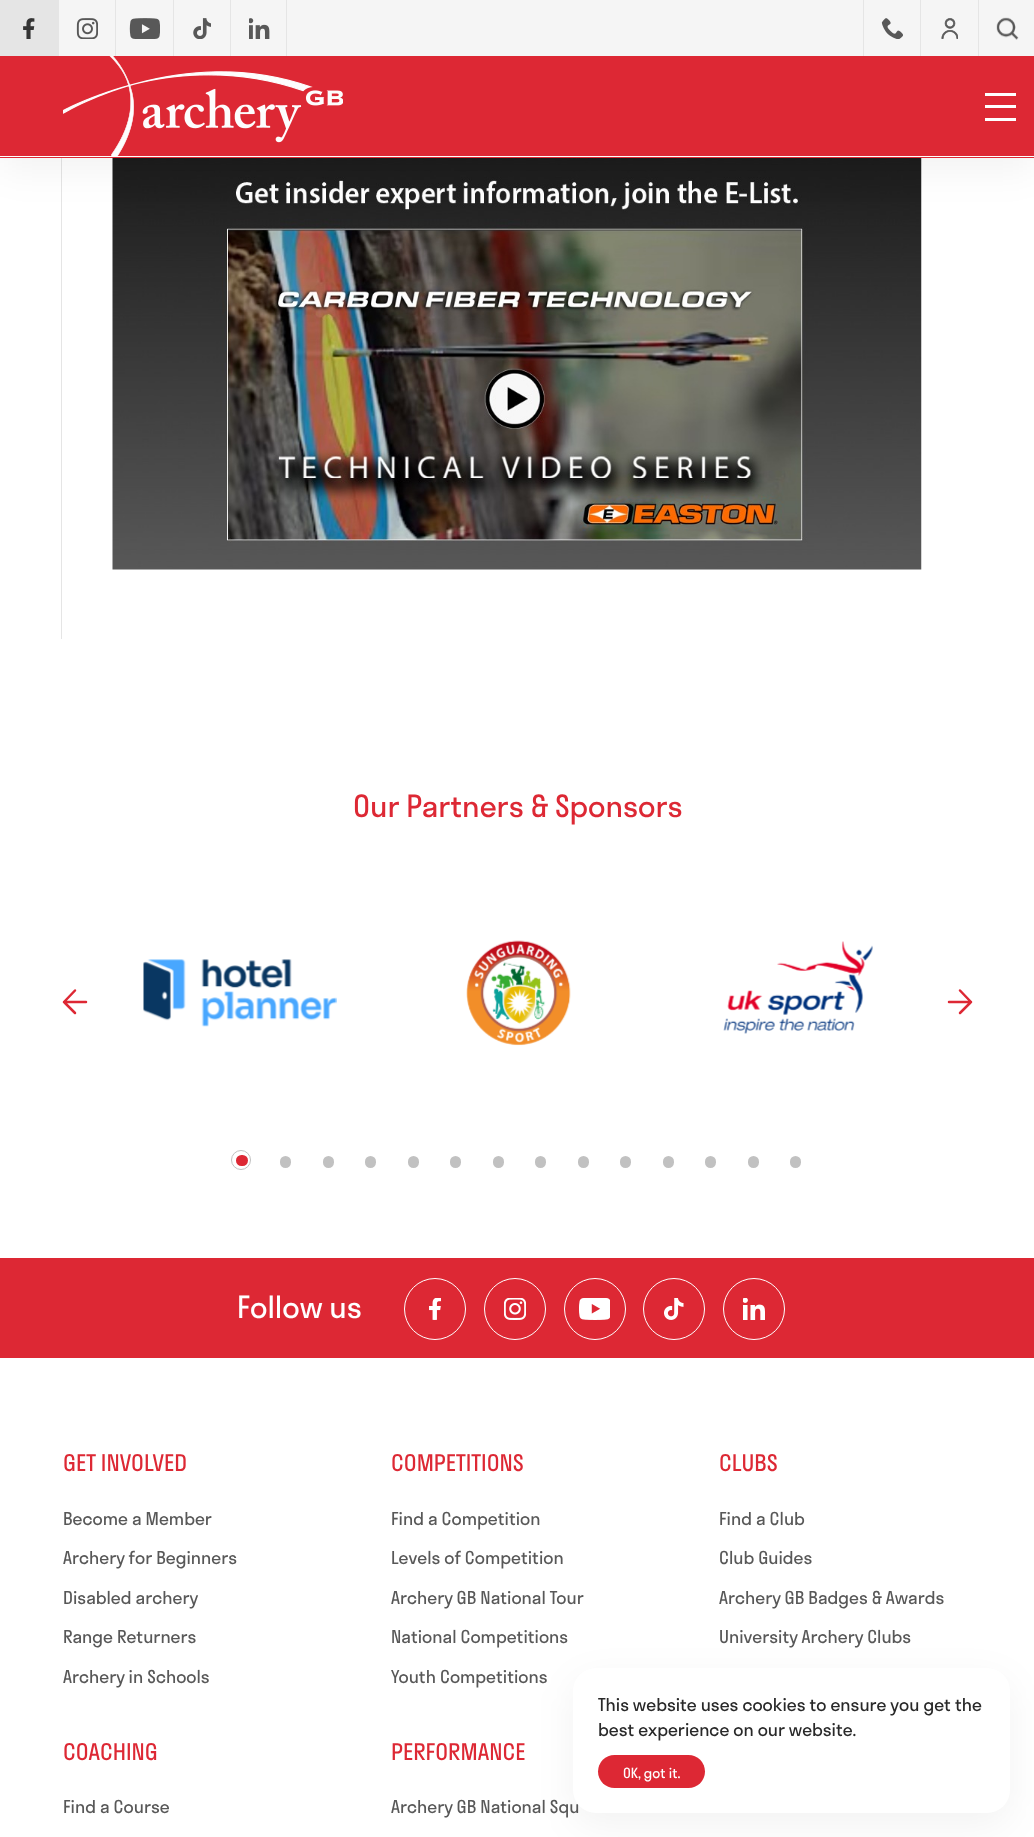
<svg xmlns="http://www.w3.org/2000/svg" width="1034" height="1837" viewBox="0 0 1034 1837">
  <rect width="100%" height="100%" fill="#fff"/>
  <path d="M61 158h1v481H61z" fill="#e5e5e5"/>
  <image x="112" y="158" width="810" height="412" href="img/10.png"/>
  <path d="M0 13h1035v157H0z" fill="#0000000d" filter="blur(19px)"/>
  <path d="M0 56h1034v102H0z" fill="#dd2834"/>
  <path d="M0 156h1034v1H0z" fill="#fff"/>
  <path d="M59 0h975v56H59z" fill="#f5f5f5"/>
  <path d="M0 0h59v56H0z" fill="#e5e5e5"/>
  <image x="23" y="18" width="12" height="21" href="img/1.png"/>
  <image x="76" y="18" width="22" height="21" href="img/2.png"/>
  <path d="M115 0h1v56H115z" fill="#e5e5e5"/>
  <image x="129" y="18" width="31" height="21" href="img/3.png"/>
  <path d="M173 0h1v56H173z" fill="#e5e5e5"/>
  <image x="193" y="18" width="18" height="21" href="img/4.png"/>
  <path d="M286 0h1v56H286z" fill="#e5e5e5"/>
  <path d="M230 0h1v56H230z" fill="#e5e5e5"/>
  <image x="249" y="18" width="21" height="21" href="img/5.png"/>
  <path d="M863 0h1v56H863z" fill="#e5e5e5"/>
  <image x="881" y="18" width="22" height="21" href="img/6.png"/>
  <path d="M920 0h1v56H920z" fill="#e5e5e5"/>
  <image x="941" y="18" width="17" height="21" href="img/7.png"/>
  <path d="M978 0h1v56H978z" fill="#e5e5e5"/>
  <image x="996" y="17" width="23" height="23" href="img/8.png"/>
  <image x="63" y="56" width="280" height="100" href="img/9.png"/>
  <path d="M985 93h31v3H985z" fill="#fff"/>
  <path d="M985 105h31v3H985z" fill="#fff"/>
  <path d="M985 118h31v3H985z" fill="#fff"/>
  <path d="M86 1002H64M75 990.5L64 1002L75 1013" fill="none" stroke="#dd2834" stroke-width="2.5" stroke-linecap="round" stroke-linejoin="round"/>
  <image x="143" y="959" width="194" height="68" href="img/11.png"/>
  <image x="466" y="940" width="105" height="106" href="img/12.png"/>
  <image x="723" y="941" width="150" height="93" href="img/13.png"/>
  <path d="M949 1002H971M960 990.5L971 1002L960 1013" fill="none" stroke="#dd2834" stroke-width="2.5" stroke-linecap="round" stroke-linejoin="round"/>
  <circle cx="241" cy="1160" r="9.5" fill="none" stroke="#c1c1c1"/>
  <rect x="236" y="1155" width="12" height="11" rx="5.5" fill="#dd2834"/>
  <rect x="280" y="1156" width="11" height="12" rx="5.5" fill="#c1c1c1"/>
  <rect x="323" y="1156" width="11" height="12" rx="5.5" fill="#c1c1c1"/>
  <rect x="365" y="1156" width="11" height="12" rx="5.5" fill="#c1c1c1"/>
  <rect x="408" y="1156" width="11" height="12" rx="5.5" fill="#c1c1c1"/>
  <rect x="450" y="1156" width="11" height="12" rx="5.5" fill="#c1c1c1"/>
  <rect x="493" y="1156" width="11" height="12" rx="5.5" fill="#c1c1c1"/>
  <rect x="535" y="1156" width="11" height="12" rx="5.5" fill="#c1c1c1"/>
  <rect x="578" y="1156" width="11" height="12" rx="5.5" fill="#c1c1c1"/>
  <rect x="620" y="1156" width="11" height="12" rx="5.5" fill="#c1c1c1"/>
  <rect x="663" y="1156" width="11" height="12" rx="5.5" fill="#c1c1c1"/>
  <rect x="705" y="1156" width="11" height="12" rx="5.5" fill="#c1c1c1"/>
  <rect x="748" y="1156" width="11" height="12" rx="5.5" fill="#c1c1c1"/>
  <rect x="790" y="1156" width="11" height="12" rx="5.5" fill="#c1c1c1"/>
  <path d="M0 1258h1034v100H0z" fill="#dd2834"/>
  <circle cx="435" cy="1309" r="30.5" fill="none" stroke="#fff"/>
  <image x="429" y="1298" width="12" height="22" href="img/14.png"/>
  <circle cx="515" cy="1309" r="30.5" fill="none" stroke="#fff"/>
  <image x="504" y="1298" width="22" height="22" href="img/15.png"/>
  <circle cx="595" cy="1309" r="30.5" fill="none" stroke="#fff"/>
  <image x="579" y="1298" width="31" height="22" href="img/16.png"/>
  <circle cx="674" cy="1309" r="30.5" fill="none" stroke="#fff"/>
  <image x="664" y="1298" width="20" height="22" href="img/17.png"/>
  <circle cx="754" cy="1309" r="30.5" fill="none" stroke="#fff"/>
  <image x="743" y="1298" width="22" height="22" href="img/18.png"/>
  <rect x="573" y="1680" width="437" height="145" rx="23" fill="#0000000d" filter="blur(19px)"/>
  <text x="353" y="817" font-family="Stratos" font-size="30" fill="#dd2834">Our Partners &amp; Sponsors</text>
  <text x="237" y="1318" font-family="Stratos" font-size="30" fill="#fff">Follow us</text>
  <text x="63" y="1471" font-family="Stratos" font-size="22.5" fill="#dd2834">GET INVOLVED</text>
  <g font-family="Stratos" font-size="17.5" fill="#585858">
    <text x="63" y="1525">Become a Member</text>
    <text x="63" y="1564">Archery for Beginners</text>
    <text x="63" y="1604">Disabled archery</text>
    <text x="63" y="1643">Range Returners</text>
    <text x="63" y="1683">Archery in Schools</text>
  </g>
  <text x="391" y="1471" font-family="Stratos" font-size="22.5" fill="#dd2834">COMPETITIONS</text>
  <g font-family="Stratos" font-size="17.5" fill="#585858">
    <text x="391" y="1525">Find a Competition</text>
    <text x="391" y="1564">Levels of Competition</text>
    <text x="391" y="1604">Archery GB National Tour</text>
    <text x="391" y="1643">National Competitions</text>
    <text x="391" y="1683">Youth Competitions</text>
  </g>
  <text x="719" y="1471" font-family="Stratos" font-size="22.5" fill="#dd2834">CLUBS</text>
  <g font-family="Stratos" font-size="17.5" fill="#585858">
    <text x="719" y="1525">Find a Club</text>
    <text x="719" y="1564">Club Guides</text>
    <text x="719" y="1604">Archery GB Badges &amp; Awards</text>
    <text x="719" y="1643">University Archery Clubs</text>
  </g>
  <text x="63" y="1760" font-family="Stratos" font-size="22.5" fill="#dd2834">COACHING</text>
  <text x="63" y="1813" font-family="Stratos" font-size="17.5" fill="#585858">Find a Course</text>
  <text x="391" y="1760" font-family="Stratos" font-size="22.5" fill="#dd2834">PERFORMANCE</text>
  <text x="391" y="1813" font-family="Stratos" font-size="17.5" fill="#585858">Archery GB National Squ</text>
  <rect x="573" y="1668" width="437" height="145" rx="23" fill="#fff"/>
  <g font-family="Stratos" font-size="17.5" fill="#292929">
    <text x="598" y="1711">This website uses cookies to ensure you get the</text>
    <text x="598" y="1736">best experience on our website.</text>
  </g>
  <rect x="598" y="1755" width="107" height="33" rx="16.5" fill="#dd2834"/>
  <text x="623" y="1778" font-family="Stratos" font-size="13.75" fill="#fff">OK, got it.</text>
</svg>
